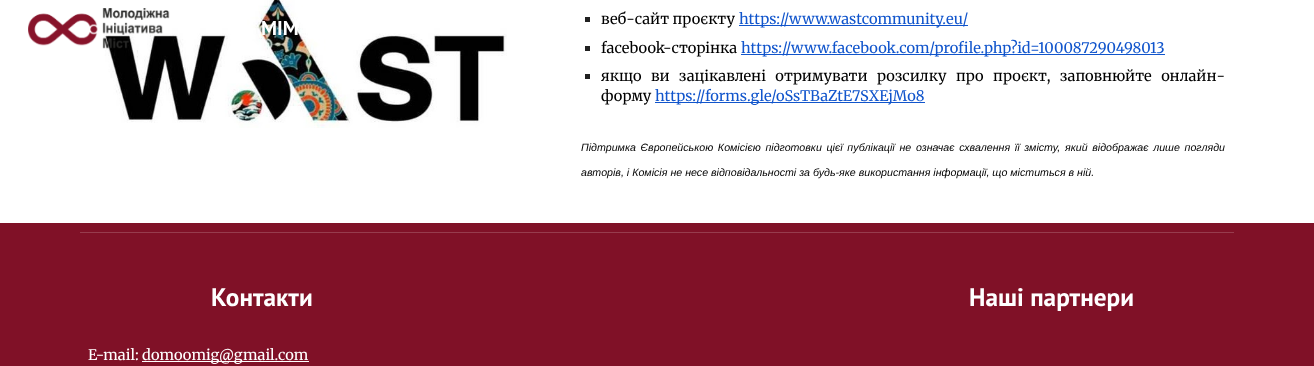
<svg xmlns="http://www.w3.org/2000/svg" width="1314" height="366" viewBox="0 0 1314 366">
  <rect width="100%" height="100%" fill="#fff"/>
  <image x="104" y="0" width="403" height="128" href="img/2.png"/>
  <image x="28" y="8" width="142" height="41" href="img/1.png"/>
  <path d="M585 17h5v5H585z" fill="#212121"/>
  <path d="M739 25h229v1H739z" fill="#15c"/>
  <path d="M585 46h5v5H585z" fill="#212121"/>
  <path d="M741 54h424v1H741z" fill="#15c"/>
  <path d="M585 74h5v5H585z" fill="#212121"/>
  <path d="M655 102h270v1H655z" fill="#15c"/>
  <path d="M0 223h1314v143H0z" fill="#801127"/>
  <path d="M80 232h1154v1H80z" fill="#973c4d"/>
  <path d="M142 361h167v1H142z" fill="#fff"/>
  <text x="261" y="35" word-spacing="-1" font-family="PT Sans" font-size="20" font-weight="bold" fill="#fff">МІМ</text>
  <text x="601" y="24" font-family="Merriweather" font-size="14.65" fill="#000">веб-сайт проєкту</text>
  <text x="739" y="24" font-family="Merriweather" font-size="14.65" fill="#15c">https://www.wastcommunity.eu/</text>
  <text x="601" y="53" font-family="Merriweather" font-size="14.65" fill="#000">facebook-сторінка</text>
  <text x="741" y="53" font-family="Merriweather" font-size="14.65" fill="#15c">https://www.facebook.com/profile.php?id=100087290498013</text>
  <g font-family="Merriweather" font-size="14.65" fill="#000">
    <text x="601" y="81" word-spacing="6">якщо ви зацікавлені отримувати розсилку про проєкт, заповнюйте онлайн-</text>
    <text x="601" y="101">форму</text>
  </g>
  <text x="655" y="101" font-family="Merriweather" font-size="14.65" fill="#15c">https://forms.gle/oSsTBaZtE7SXEjMo8</text>
  <g font-family="Liberation Sans" font-size="10.67" font-style="italic" fill="#000">
    <text x="581" y="151" word-spacing="1.75">Підтримка Європейською Комісією підготовки цієї публікації не означає схвалення її змісту, який відображає лише погляди</text>
    <text x="581" y="176">авторів, і Комісія не несе відповідальності за будь-яке використання інформації, що міститься в ній.</text>
  </g>
  <text x="211" y="306" font-family="PT Sans" font-size="25.25" font-weight="bold" fill="#fff">Контакти</text>
  <g font-family="Merriweather" font-size="14.65" fill="#fff">
    <text x="88" y="360">E-mail:</text>
    <text x="142" y="360">domoomig@gmail.com</text>
  </g>
  <text x="969" y="306" font-family="PT Sans" font-size="25.25" font-weight="bold" fill="#fff">Наші партнери</text>
</svg>
